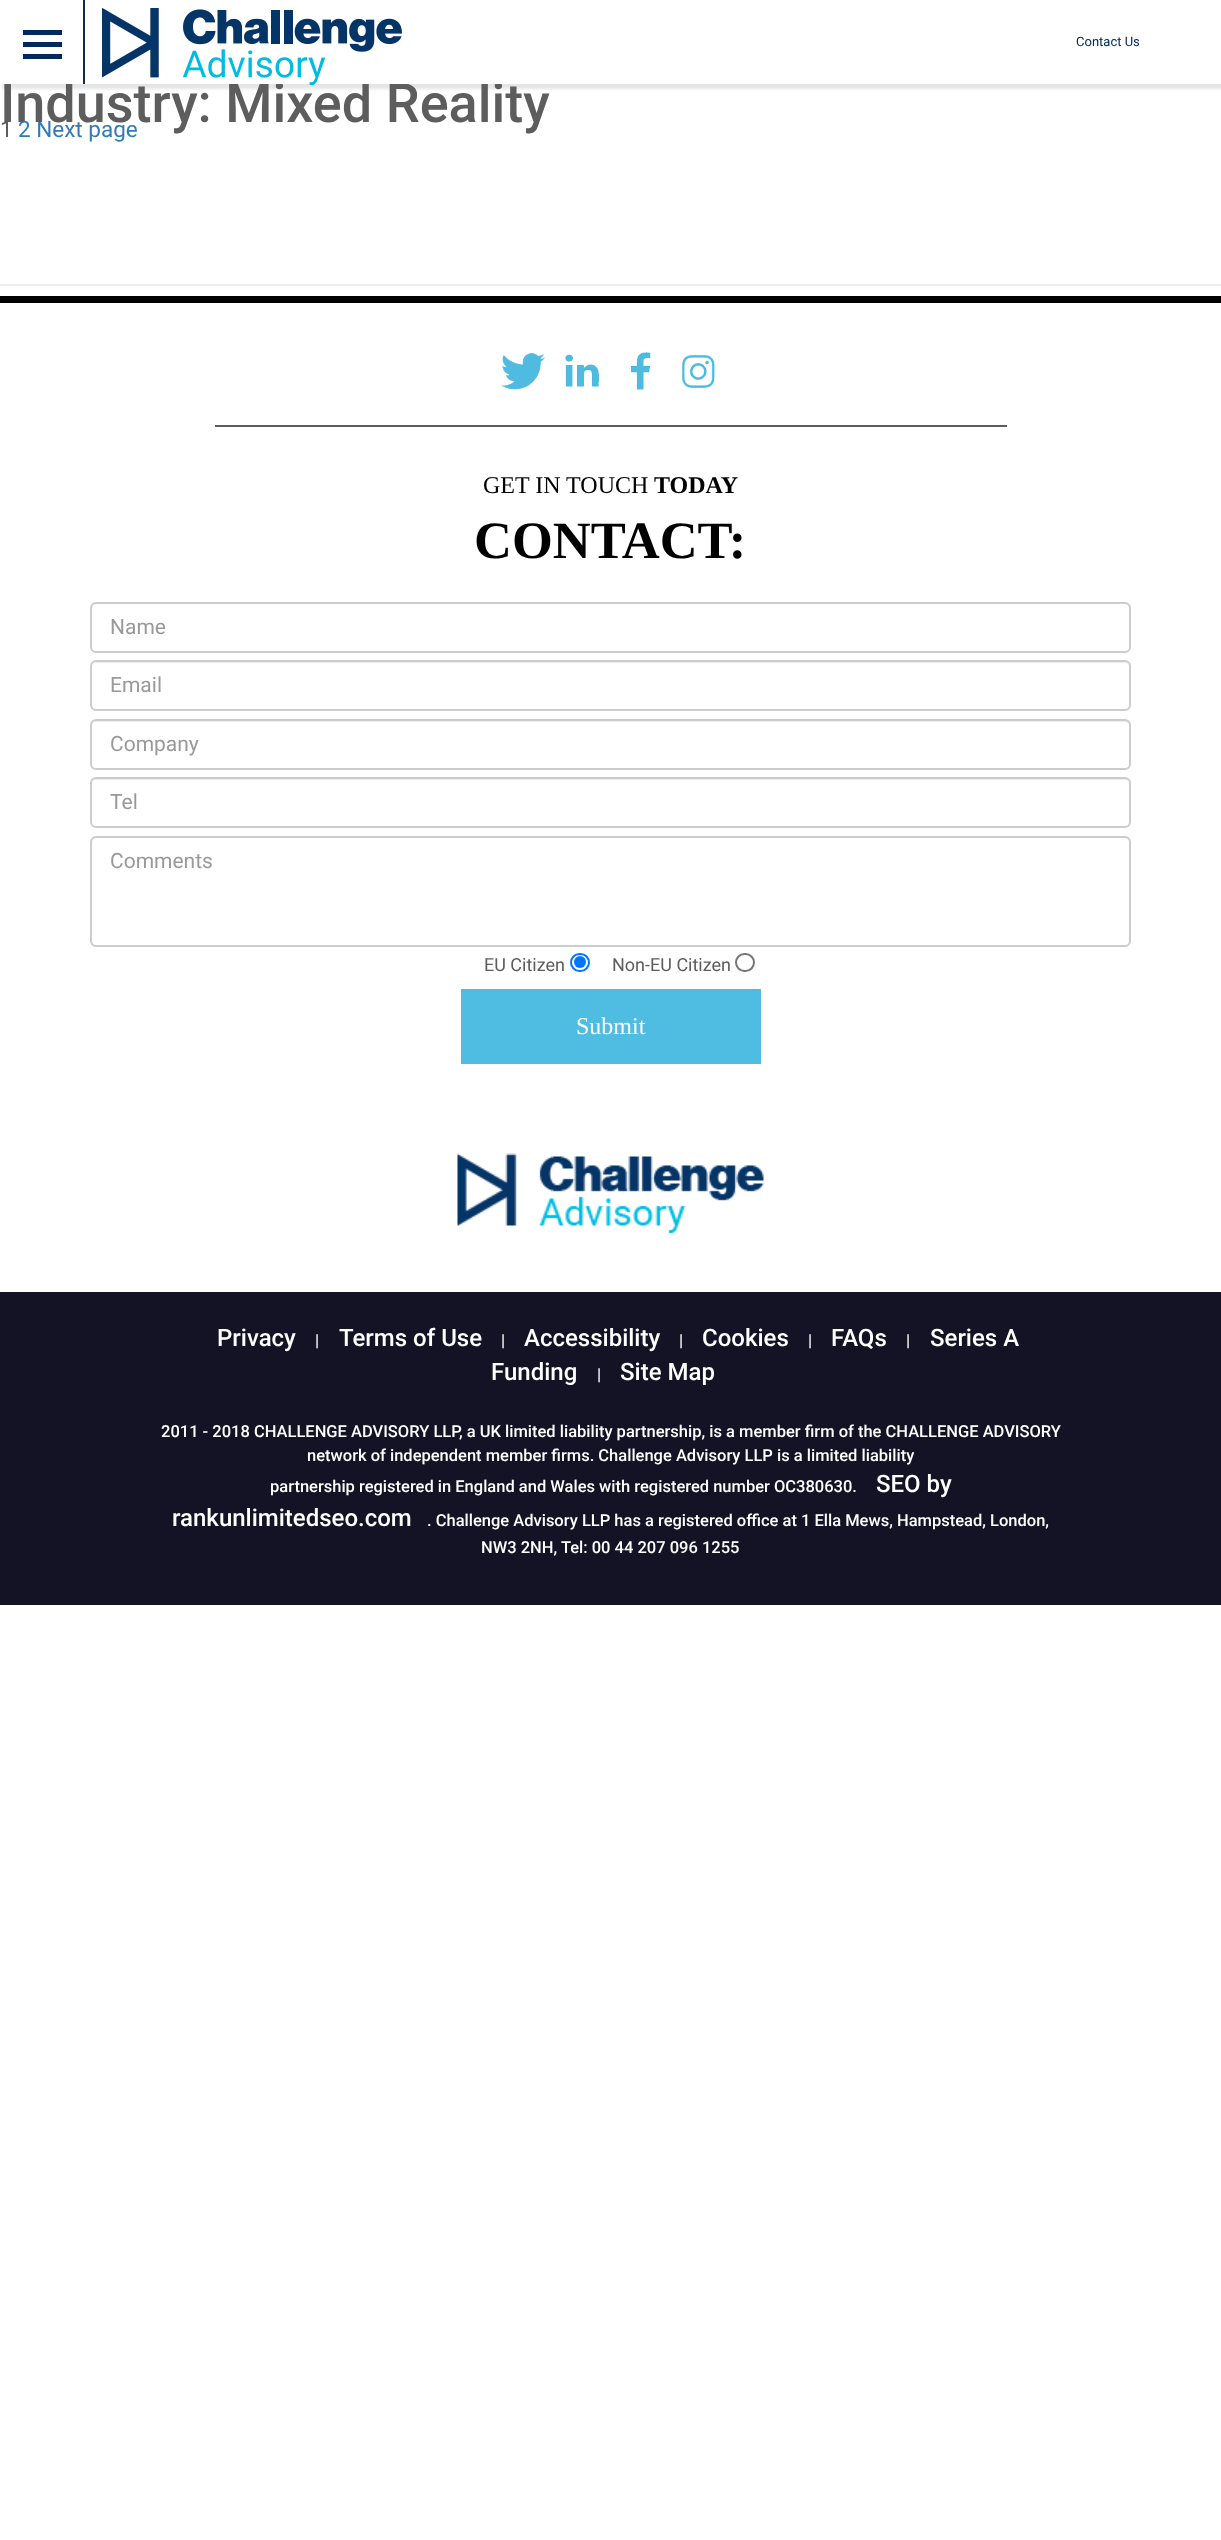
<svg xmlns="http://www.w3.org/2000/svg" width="1221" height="2540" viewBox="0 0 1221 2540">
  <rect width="100%" height="100%" fill="#fff"/>
  <path d="M2 2h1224v87H2z" fill="#0000001a" filter="blur(1.5px)"/>
  <path d="M0 284h1221v2H0z" fill="#eee"/>
  <path d="M0 296h1221v7H0z" fill="#000"/>
  <path d="M215 425h792v2H215z" fill="#5d5d5d"/>
  <image x="501" y="353" width="44" height="37" href="img/2.png"/>
  <image x="565" y="354" width="34" height="33" href="img/3.png"/>
  <image x="630" y="352" width="21" height="38" href="img/4.png"/>
  <image x="681" y="354" width="34" height="34" href="img/5.png"/>
  <path d="M96 604H1125C1127 604 1130 607 1130 609C1130 606 1128 603 1125 603H97C94 603 92 606 92 609C92 607 94 604 96 604Z" fill="#ececec"/>
  <rect x="91" y="603" width="1039" height="49" rx="5" fill="none" stroke="#ccc" stroke-width="2"/>
  <path d="M96 663H1125C1127 663 1130 665 1130 668C1130 665 1128 662 1125 662H97C94 662 92 665 92 668C92 665 94 663 96 663Z" fill="#ececec"/>
  <rect x="91" y="661" width="1039" height="49" rx="5" fill="none" stroke="#ccc" stroke-width="2"/>
  <path d="M96 722H1125C1127 722 1130 724 1130 726C1130 723 1128 720 1125 720H97C94 720 92 723 92 726C92 724 94 722 96 722Z" fill="#ececec"/>
  <rect x="91" y="720" width="1039" height="49" rx="5" fill="none" stroke="#ccc" stroke-width="2"/>
  <path d="M96 780H1125C1127 780 1130 782 1130 784C1130 781 1128 779 1125 779H97C94 779 92 781 92 784C92 782 94 780 96 780Z" fill="#ececec"/>
  <rect x="91" y="778" width="1039" height="49" rx="5" fill="none" stroke="#ccc" stroke-width="2"/>
  <path d="M96 838H1125C1127 838 1130 841 1130 843C1130 840 1128 837 1125 837H97C94 837 92 840 92 843C92 841 94 838 96 838Z" fill="#ececec"/>
  <rect x="91" y="837" width="1039" height="109" rx="5" fill="none" stroke="#ccc" stroke-width="2"/>
  <rect x="571" y="954" width="18" height="17" rx="8.5" fill="none" stroke="#0075ff" stroke-width="2"/>
  <circle cx="580" cy="962" r="6" fill="#0075ff"/>
  <rect x="736" y="954" width="18" height="17" rx="8.5" fill="none" stroke="#767676" stroke-width="2"/>
  <path d="M461 989h300v75H461z" fill="#4fbce1"/>
  <image x="457" y="1153" width="307" height="81" href="img/6.png"/>
  <path d="M0 1292h1221v313H0z" fill="#131325"/>
  <text x="0" y="137" font-family="Roboto" font-size="22.5" fill="#5d5d5d">1</text>
  <text x="18" y="137" font-family="Roboto" font-size="22.5" fill="#337ab7">2 Next page</text>
  <text x="0" y="122" font-family="Roboto" font-size="54" font-weight="500" fill="#5d5d5d">Industry: Mixed Reality</text>
  <path d="M0 0h1221v84H0z" fill="#fff"/>
  <path d="M23 42h39v5H23z" fill="#002960"/>
  <path d="M23 54h39v5H23z" fill="#002960"/>
  <path d="M23 30h39v5H23z" fill="#002960"/>
  <path d="M83 0h2v84H83z" fill="#142a45"/>
  <text x="1076" y="46" font-family="Roboto" font-size="13" fill="#002960">Contact Us</text>
  <image x="102" y="8" width="300" height="78" href="img/1.png"/>
  <text x="483" y="493" font-family="Liberation Serif" font-size="24" fill="#000">GET IN TOUCH</text>
  <text x="654" y="493" font-family="Liberation Serif" font-size="24" font-weight="bold" fill="#000">TODAY</text>
  <text x="474" y="558" font-family="Liberation Serif" font-size="52.5" font-weight="bold" fill="#000">CONTACT:</text>
  <g font-family="Roboto" font-size="21" fill="#999">
    <text x="110" y="634">Name</text>
    <text x="110" y="692">Email</text>
    <text x="110" y="751">Company</text>
    <text x="110" y="809">Tel</text>
    <text x="110" y="868">Comments</text>
  </g>
  <g font-family="Roboto" font-size="18" fill="#5d5d5d">
    <text x="484" y="971">EU Citizen</text>
    <text x="612" y="971">Non-EU Citizen</text>
  </g>
  <text x="576" y="1034" font-family="Liberation Serif" font-size="24" fill="#fff">Submit</text>
  <text x="217" y="1346" font-family="Roboto" font-size="24" font-weight="500" fill="#fff">Privacy</text>
  <text x="315" y="1346" font-family="Roboto" font-size="16.5" font-weight="500" fill="#fff">|</text>
  <text x="339" y="1346" font-family="Roboto" font-size="24" font-weight="500" fill="#fff">Terms of Use</text>
  <text x="501" y="1346" font-family="Roboto" font-size="16.5" font-weight="500" fill="#fff">|</text>
  <text x="524" y="1346" font-family="Roboto" font-size="24" font-weight="500" fill="#fff">Accessibility</text>
  <text x="679" y="1346" font-family="Roboto" font-size="16.5" font-weight="500" fill="#fff">|</text>
  <text x="702" y="1346" font-family="Roboto" font-size="24" font-weight="500" fill="#fff">Cookies</text>
  <text x="808" y="1346" font-family="Roboto" font-size="16.5" font-weight="500" fill="#fff">|</text>
  <text x="831" y="1346" font-family="Roboto" font-size="24" font-weight="500" fill="#fff">FAQs</text>
  <text x="906" y="1346" font-family="Roboto" font-size="16.5" font-weight="500" fill="#fff">|</text>
  <g font-family="Roboto" font-size="24" font-weight="500" fill="#fff">
    <text x="930" y="1346">Series A</text>
    <text x="491" y="1380">Funding</text>
  </g>
  <text x="597" y="1380" font-family="Roboto" font-size="16.5" font-weight="500" fill="#fff">|</text>
  <text x="620" y="1380" font-family="Roboto" font-size="24" font-weight="500" fill="#fff">Site Map</text>
  <g font-family="Roboto" font-size="16.5" font-weight="500" fill="#fff">
    <text x="161" y="1437">2011 - 2018 CHALLENGE ADVISORY LLP, a UK limited liability partnership, is a member firm of the CHALLENGE ADVISORY</text>
    <text x="307" y="1461">network of independent member firms. Challenge Advisory LLP is a limited liability</text>
    <text x="270" y="1492">partnership registered in England and Wales with registered number OC380630.</text>
  </g>
  <g font-family="Roboto" font-size="24" font-weight="500" fill="#fff">
    <text x="876" y="1492">SEO by</text>
    <text x="172" y="1526">rankunlimitedseo.com</text>
  </g>
  <g font-family="Roboto" font-size="16.5" font-weight="500" fill="#fff">
    <text x="427" y="1526">. Challenge Advisory LLP has a registered office at 1 Ella Mews, Hampstead, London,</text>
    <text x="481" y="1553">NW3 2NH, Tel: 00 44 207 096 1255</text>
  </g>
</svg>
